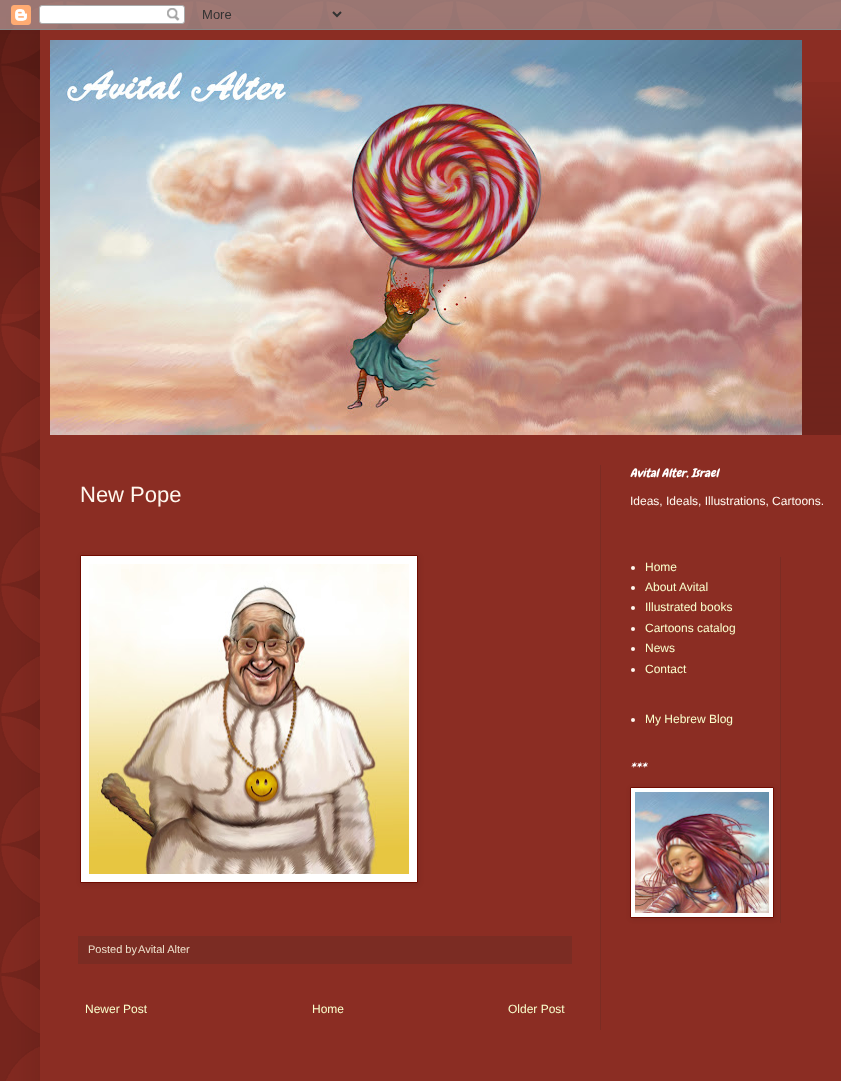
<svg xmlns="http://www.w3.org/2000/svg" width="841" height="1081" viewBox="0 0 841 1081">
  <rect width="100%" height="100%" fill="#8b2d23"/>
  <image x="0" y="0" width="841" height="1081" href="img/1.png"/>
  <image x="0" y="0" width="841" height="314" href="img/2.png"/>
  <path d="M40 30h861v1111H40z" fill="#00000026" filter="blur(20px)"/>
  <image x="0" y="0" width="841" height="30" href="img/3.png"/>
  <path d="M40 30h801v1051H40z" fill="#8b2d23"/>
  <image x="802" y="82" width="39" height="353" href="img/4.png"/>
  <image x="50" y="40" width="752" height="395" href="img/5.png"/>
  <path d="M600 465h1v565H600z" fill="#7b2c23"/>
  <path d="M81 556h338v328H81z" fill="#0000001a" filter="blur(2.5px)"/>
  <path d="M80.5 555.5h337v327H80.5z" fill="#fff" stroke="#700b00"/>
  <image x="89" y="564" width="320" height="310" href="img/6.png"/>
  <path d="M78 936h494v28H78z" fill="#7b2c23"/>
  <circle cx="633" cy="568" r="2" fill="#fff7ee"/>
  <circle cx="633" cy="588" r="2" fill="#fff7ee"/>
  <circle cx="633" cy="608" r="2" fill="#fff7ee"/>
  <circle cx="633" cy="629" r="2" fill="#fff7ee"/>
  <circle cx="633" cy="649" r="2" fill="#fff7ee"/>
  <circle cx="633" cy="670" r="2" fill="#fff7ee"/>
  <circle cx="633" cy="720" r="2" fill="#fff7ee"/>
  <path d="M780 557h1v366H780z" fill="#7b2c23"/>
  <path d="M631 788h144v131H631z" fill="#0000001a" filter="blur(2.5px)"/>
  <path d="M630.5 787.5h143v130H630.5z" fill="#fff" stroke="#700b00"/>
  <image x="635" y="792" width="134" height="121" href="img/7.png"/>
  <text x="80" y="502" font-family="Liberation Sans" font-size="22" fill="#fff7ee">New Pope</text>
  <g font-family="Liberation Sans" font-size="11" fill="#eee1cc">
    <text x="88" y="953">Posted by</text>
    <text x="138" y="953">Avital Alter</text>
  </g>
  <g font-family="Liberation Sans" font-size="12" fill="#faffcd">
    <text x="85" y="1013">Newer Post</text>
    <text x="312" y="1013">Home</text>
    <text x="508" y="1013">Older Post</text>
  </g>
  <text x="630" y="477" font-family="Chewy" font-size="12" font-style="italic" fill="#fff">Avital Alter, Israel</text>
  <text x="630" y="505" font-family="Liberation Sans" font-size="12" fill="#fff7ee">Ideas, Ideals, Illustrations, Cartoons.</text>
  <g font-family="Liberation Sans" font-size="12" fill="#faffcd">
    <text x="645" y="571">Home</text>
    <text x="645" y="591">About Avital</text>
    <text x="645" y="611">Illustrated books</text>
    <text x="645" y="632">Cartoons catalog</text>
    <text x="645" y="652">News</text>
    <text x="645" y="673">Contact</text>
    <text x="645" y="723">My Hebrew Blog</text>
  </g>
  <text x="630" y="771" font-family="Chewy" font-size="12" font-style="italic" fill="#fff">***</text>
</svg>
